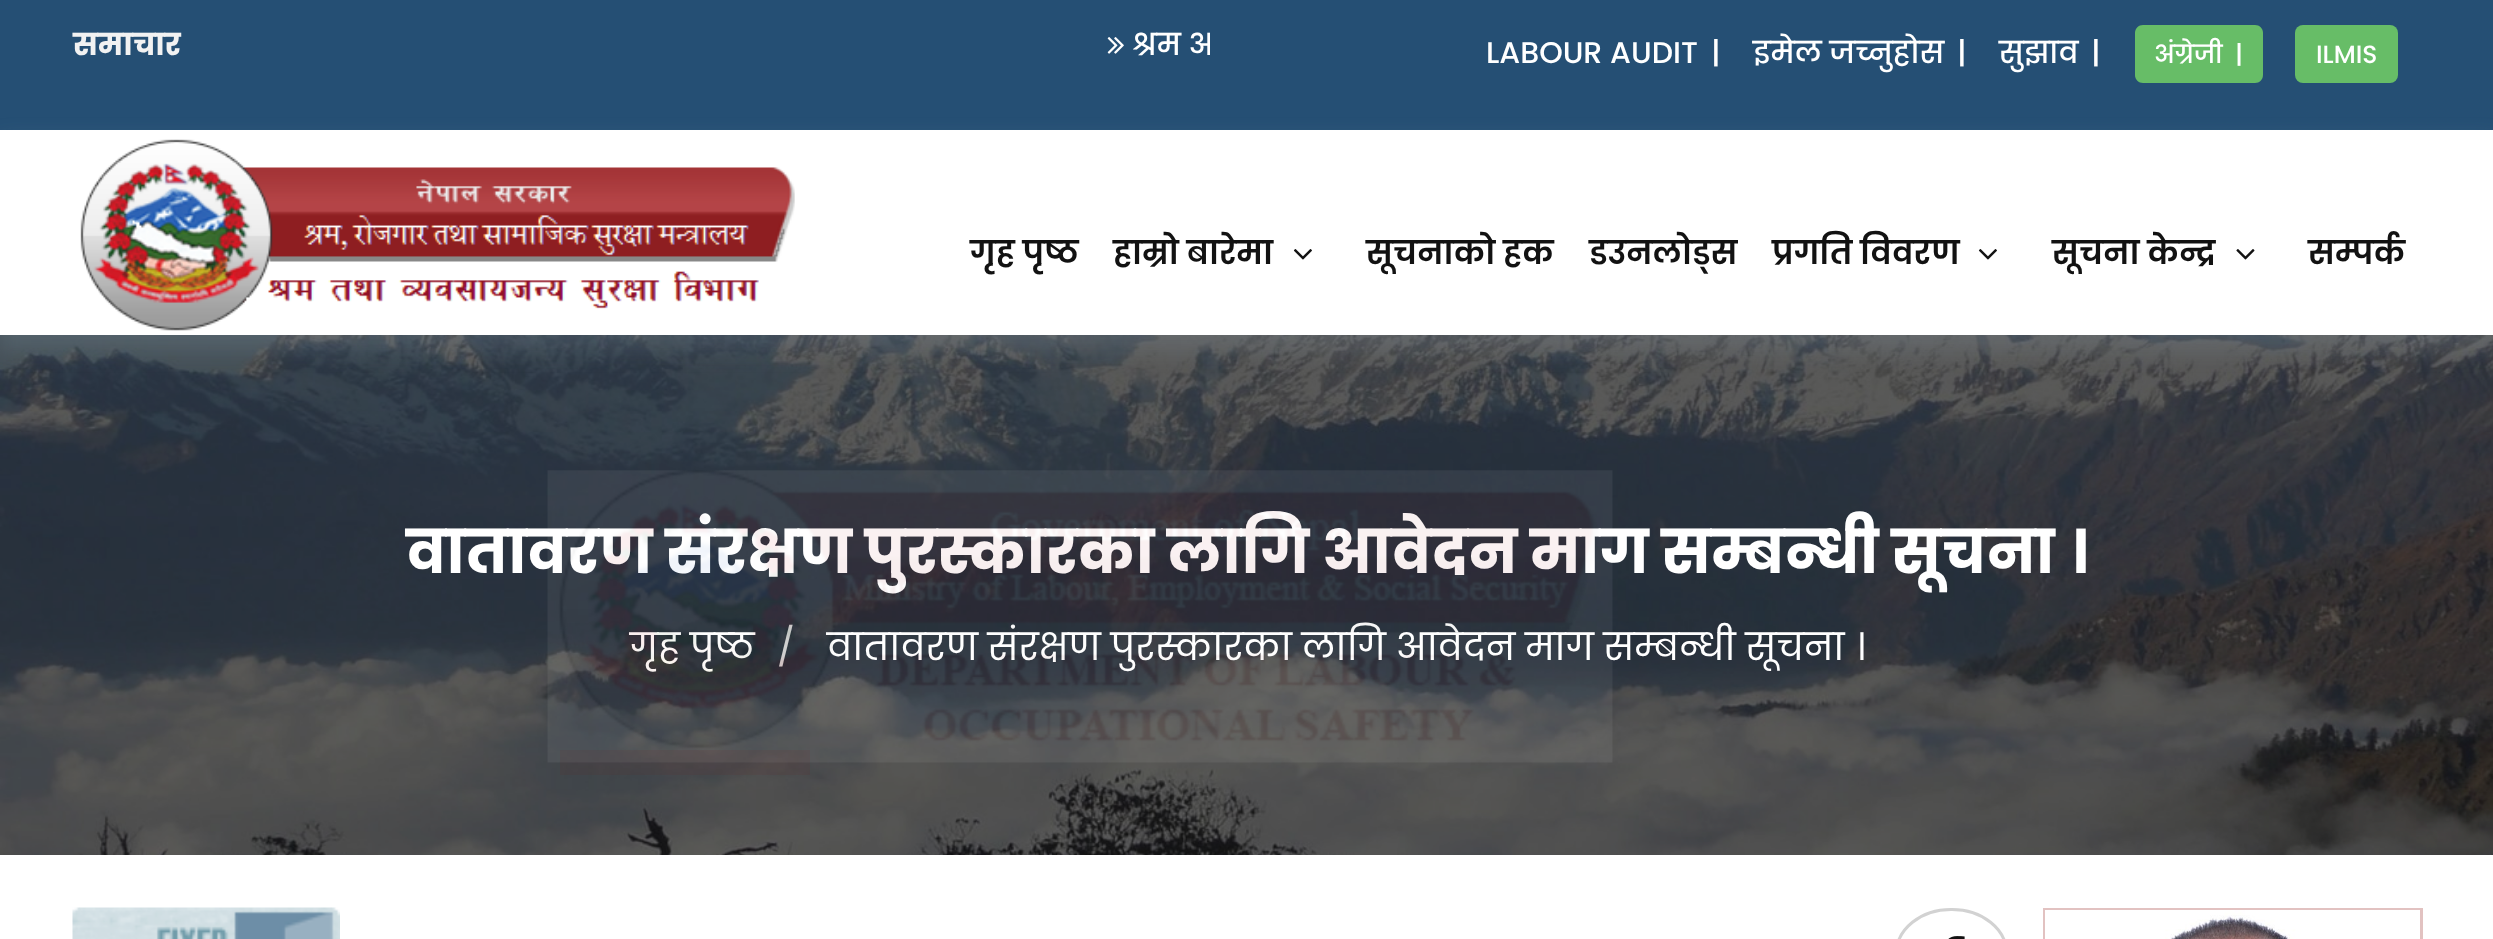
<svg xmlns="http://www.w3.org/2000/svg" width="2493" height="939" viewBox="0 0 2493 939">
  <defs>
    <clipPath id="clip1"><path d="M275 25h935v43H275z"/></clipPath>
  </defs>
  <rect width="100%" height="100%" fill="#254f74"/>
  <image x="1107" y="37" width="17" height="17" href="img/1.png"/>
  <path d="M2143 25H2223V83H2143C2138.5 83 2135 79.5 2135 75V33C2135 28.5 2138.5 25 2143 25Z" fill="#67bd67"/>
  <path d="M2223 25H2255C2259.5 25 2263 28.5 2263 33V75C2263 79.5 2259.5 83 2255 83H2223Z" fill="#67bd67"/>
  <rect x="2295" y="25" width="103" height="58" rx="8" fill="#67bd67"/>
  <image x="0" y="335" width="2493" height="520" href="img/6.png"/>
  <path d="M-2 140h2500v210H-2z" fill="#98a8b933" filter="blur(11px)"/>
  <path d="M0 130h2493v205H0z" fill="#fff"/>
  <image x="80" y="139" width="715" height="192" href="img/2.png"/>
  <image x="1293" y="249" width="19" height="11" href="img/3.png"/>
  <image x="1978" y="249" width="19" height="11" href="img/3.png"/>
  <image x="2236" y="249" width="19" height="11" href="img/4.png"/>
  <path d="M0 855h2493v84H0z" fill="#fff"/>
  <image x="72" y="907" width="268" height="32" href="img/7.png"/>
  <rect x="1896.5" y="909.5" width="110" height="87" rx="54.5" fill="none" stroke="#d2d2d2" stroke-width="3"/>
  <image x="1948" y="936" width="17" height="3" href="img/8.png"/>
  <path d="M2044.5 909.5h377v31H2044.5z" fill="none" stroke="#e2c2c1" stroke-width="3"/>
  <image x="2045" y="910" width="375" height="29" href="img/9.png"/>
  <text x="73" y="55" font-family="Poppins" font-size="30" font-weight="bold" fill="#f2f2f2">समाचार</text>
  <g clip-path="url(#clip1)">
    <text x="1132" y="55" font-family="Poppins" font-size="30" font-weight="500" fill="#fff">श्रम अ</text>
  </g>
  <g font-family="Poppins" font-size="30" font-weight="500" fill="#fff">
    <text x="1486" y="63">LABOUR AUDIT</text>
    <text x="1711" y="63">|</text>
    <text x="1753" y="63">इमेल जच्नुहोस</text>
    <text x="1957" y="63">|</text>
    <text x="1999" y="63">सुझाव</text>
    <text x="2091" y="63">|</text>
  </g>
  <g font-family="Poppins" font-size="25" font-weight="500" fill="#fff">
    <text x="2154" y="63">अंग्रेजी</text>
    <text x="2235" y="63">|</text>
    <text x="2316" y="63">ILMIS</text>
  </g>
  <g font-family="Poppins" font-size="32.5" font-weight="600" fill="#121212">
    <text x="970" y="264">गृह पृष्‍ठ</text>
    <text x="1113" y="264">हाम्रो बारेमा</text>
    <text x="1366" y="264">सूचनाको हक</text>
    <text x="1589" y="264">डउनलोड्स</text>
    <text x="1772" y="264">प्रगति विवरण</text>
    <text x="2052" y="264">सूचना केन्द्र</text>
    <text x="2308" y="264">सम्पर्क</text>
  </g>
  <text x="406" y="573" font-family="Poppins" font-size="60" font-weight="bold" fill="#fff">वातावरण संरक्षण पुरस्कारका लागि आवेदन माग सम्बन्धी सूचना ।</text>
  <text x="630" y="660" font-family="Poppins" font-size="37.5" fill="#fff">गृह पृष्‍ठ</text>
  <text x="777" y="660" font-family="Poppins" font-size="37.5" fill="#d0d0d0">/</text>
  <text x="827" y="660" font-family="Poppins" font-size="37.5" fill="#fff">वातावरण संरक्षण पुरस्कारका लागि आवेदन माग सम्बन्धी सूचना ।</text>
  <image x="547" y="470" width="1066" height="293" href="img/5.png"/>
  <path d="M560 750h250v25H560z" fill="#850d1012"/>
</svg>
